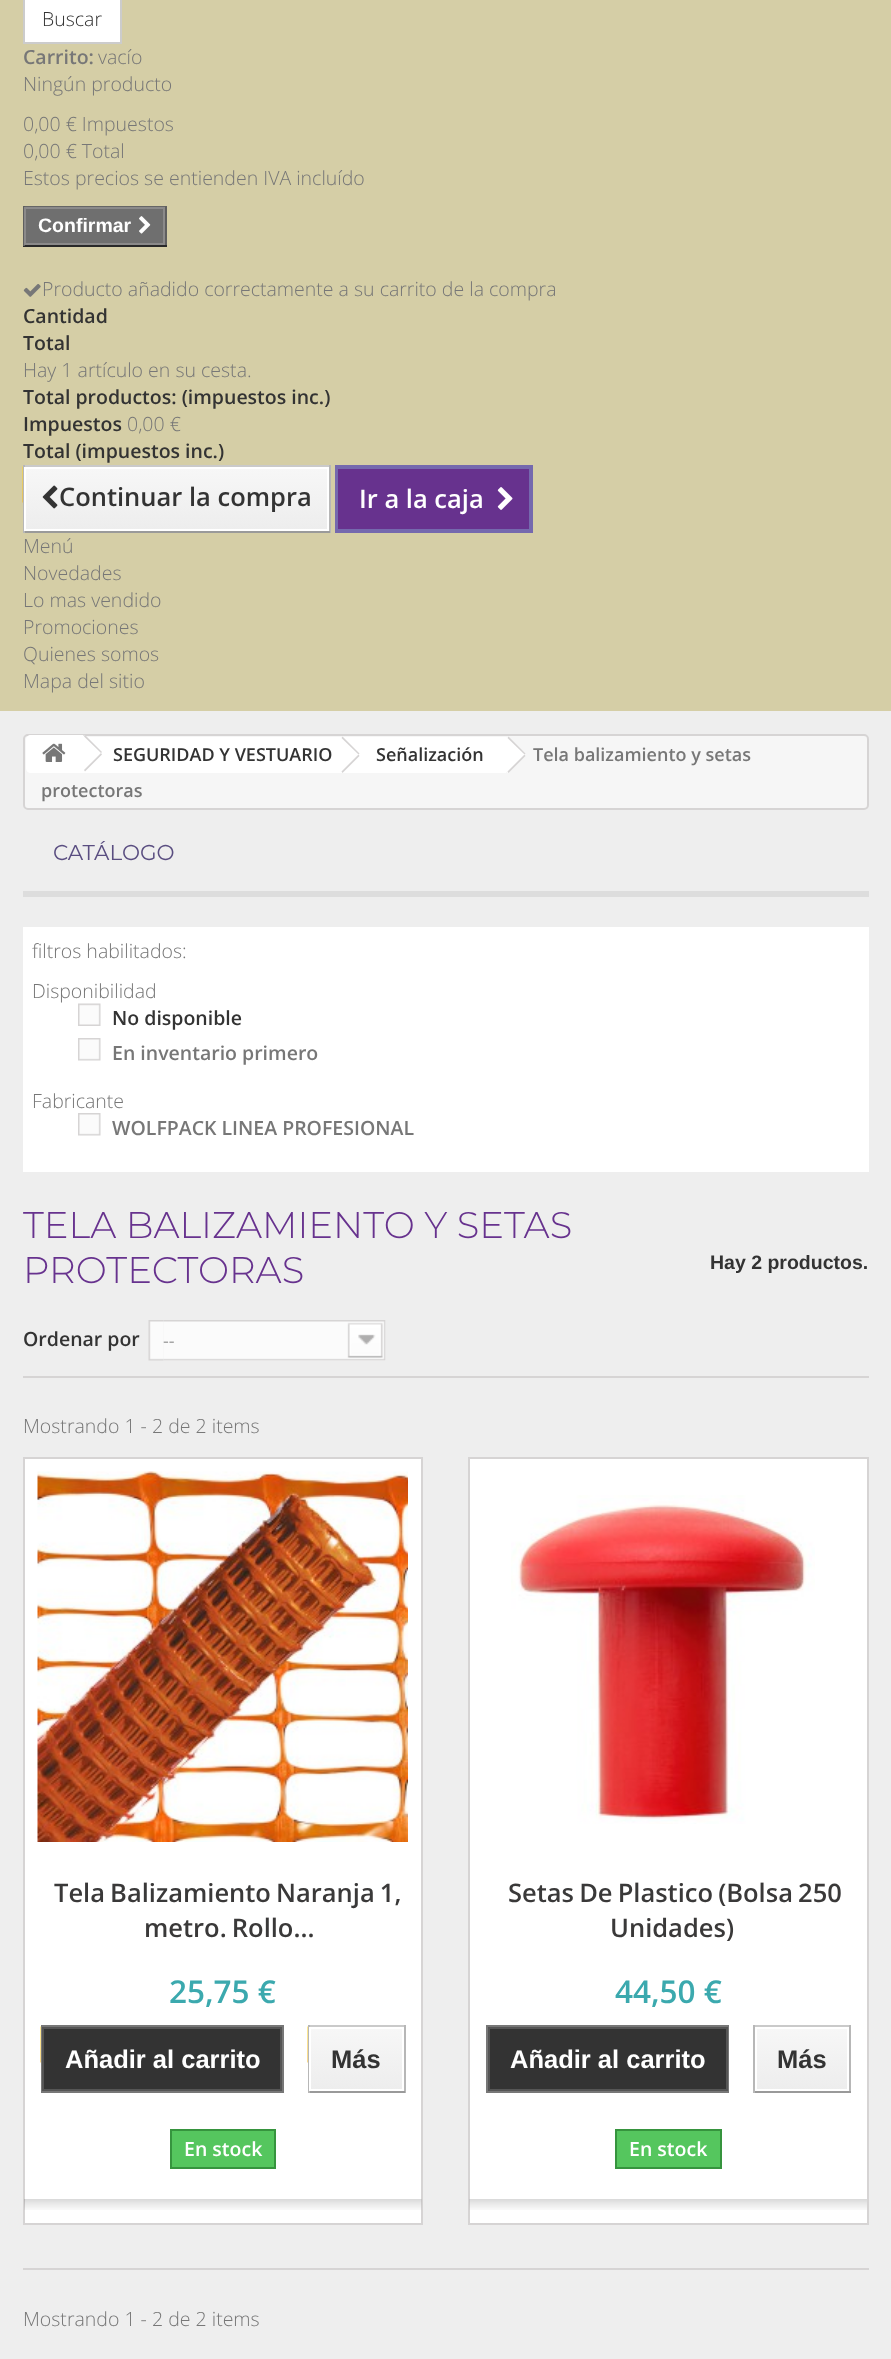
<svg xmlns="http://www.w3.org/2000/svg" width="891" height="2359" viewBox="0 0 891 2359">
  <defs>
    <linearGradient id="g1" gradientUnits="userSpaceOnUse" x1="176" y1="468" x2="176" y2="530"><stop offset="0" stop-color="#f7f7f7"/><stop offset="1" stop-color="#ededed"/></linearGradient>
    <linearGradient id="g2" gradientUnits="userSpaceOnUse" x1="356" y1="2028" x2="356" y2="2090"><stop offset="0" stop-color="#f7f7f7"/><stop offset="1" stop-color="#ededed"/></linearGradient>
    <linearGradient id="g3" gradientUnits="userSpaceOnUse" x1="802" y1="2028" x2="802" y2="2090"><stop offset="0" stop-color="#f7f7f7"/><stop offset="1" stop-color="#ededed"/></linearGradient>
  </defs>
  <rect width="100%" height="100%" fill="#eee"/>
  <path d="M0 0h891v711H0z" fill="#d5cea6"/>
  <path d="M24 -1h97v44H24z" fill="#fff" stroke="#ccc" stroke-width="2"/>
  <path d="M26 209h137v34H26z" fill="#6f6f6f"/>
  <path d="M23 206h144v1H23z" fill="#666"/>
  <path d="M165 206h2v40H165z" fill="#5f5f5f"/>
  <path d="M23 245h144v2H23z" fill="#292929"/>
  <path d="M23 206h2v40H23z" fill="#5f5f5f"/>
  <path d="M25 208h139v36H25z" fill="none" stroke="#8b8a8a" stroke-width="2"/>
  <image x="139" y="216" width="12" height="18" href="img/1.png"/>
  <image x="23" y="284" width="18" height="13" href="img/2.png"/>
  <image x="22" y="466" width="1" height="37" href="img/3.png"/>
  <path d="M23 465h307v2H23z" fill="#cacaca"/>
  <path d="M329 465h2v68H329z" fill="#b7b7b7"/>
  <path d="M23 531h307v2H23z" fill="#9a9a9a"/>
  <path d="M23 465h2v68H23z" fill="#b7b7b7"/>
  <path d="M26 469h301v60H26z" fill="url(#g1)"/>
  <path d="M25 468h303v62H25z" fill="none" stroke="#fff" stroke-width="2"/>
  <image x="42" y="485" width="16" height="24" href="img/4.png"/>
  <path d="M338 469h191v60H338z" fill="#67328e"/>
  <path d="M336 466h196v66H336z" fill="none" stroke="#7569ae" stroke-width="2"/>
  <path d="M337 468h193v62H337z" fill="none" stroke="#7569ae" stroke-width="2"/>
  <image x="497" y="487" width="16" height="23" href="img/5.png"/>
  <rect x="24" y="735" width="844" height="74" rx="4" fill="#f6f6f6" stroke="#d6d4d4" stroke-width="2"/>
  <path d="M31 735H83V773H31C28 773 26 771 26 768V740C26 737 28 735 31 735Z" fill="#fff"/>
  <image x="42" y="743" width="24" height="19" href="img/6.png"/>
  <path d="M83 737h261v36H83z" fill="#fff"/>
  <path d="M86 736.5L101 751C102 752.5 102 754 101 755.5L86 770C85 771.5 83 771.5 82 770L67 755.5C66 754 66 752.5 67 751L82 736.5C83 735 85 735 86 736.5Z" fill="#fff"/>
  <path d="M85 735L102 752L101 753L84 736.5ZM101 753L102 754.5L85 771.5L84 770Z" fill="#d6d4d4"/>
  <path d="M358.5 738L373.5 752.5C374.5 754 374.5 755.5 373.5 757L358.5 771.5C357 773 355.5 773 354 771.5L339.5 757C338 755.5 338 754 339.5 752.5L354 738C355.5 736.5 357 736.5 358.5 738Z" fill="#fff"/>
  <path d="M344 737h162v36H344z" fill="#fff"/>
  <path d="M342.5 736.5L359.5 753.5L358.5 754.5L341.5 738Z" fill="#d6d4d4"/>
  <path d="M358.5 754.5L359.5 756L342.5 773L341.5 771.5Z" fill="#d6d4d4"/>
  <path d="M509.5 738L524.5 752.5C525.5 754 525.5 755.5 524.5 757L509.5 771.5C508.5 773 506.5 773 505.5 771.5L490.5 757C489.5 755.5 489.5 754 490.5 752.5L505.5 738C506.5 736.5 508.5 736.5 509.5 738Z" fill="#fff"/>
  <path d="M508.5 736.5L525.5 753.5L524.5 754.5L507.5 738Z" fill="#d6d4d4"/>
  <path d="M524.5 754.5L525.5 756L508.5 773L507.5 771.5Z" fill="#d6d4d4"/>
  <path d="M23 891h846v6H23z" fill="#ddd"/>
  <path d="M23 927h846v245H23z" fill="#fff"/>
  <image x="78" y="1003" width="23" height="23" href="img/7.png"/>
  <image x="78" y="1038" width="23" height="23" href="img/8.png"/>
  <image x="78" y="1113" width="23" height="23" href="img/8.png"/>
  <path d="M23 1376h846v2H23z" fill="#d6d4d4"/>
  <image x="148" y="1320" width="16" height="41" href="img/9.png"/>
  <image x="163" y="1320" width="223" height="41" href="img/10.png"/>
  <path d="M24 1458h398v766H24z" fill="#fff" stroke="#d6d4d4" stroke-width="2"/>
  <image x="37" y="1471" width="371" height="371" href="img/11.png"/>
  <image x="40" y="2026" width="1" height="37" href="img/12.png"/>
  <path d="M42 2026h241v66H42z" fill="none" stroke="#777" stroke-width="2"/>
  <path d="M43 2028h238v62H43z" fill="#333" stroke="#555" stroke-width="2"/>
  <image x="307" y="2026" width="1" height="37" href="img/12.png"/>
  <path d="M308 2025h97v2H308z" fill="#cacaca"/>
  <path d="M404 2025h2v68H404z" fill="#b7b7b7"/>
  <path d="M308 2091h97v2H308z" fill="#9a9a9a"/>
  <path d="M308 2025h2v68H308z" fill="#b7b7b7"/>
  <path d="M311 2029h91v60H311z" fill="url(#g2)"/>
  <path d="M310 2028h93v62H310z" fill="none" stroke="#fff" stroke-width="2"/>
  <path d="M171 2130h104v38H171z" fill="#55c65e" stroke="#36943e" stroke-width="2"/>
  <image x="24" y="2199" width="398" height="11" href="img/13.png"/>
  <path d="M469 1458h399v766H469z" fill="#fff" stroke="#d6d4d4" stroke-width="2"/>
  <image x="511" y="1495" width="304" height="329" href="img/14.png"/>
  <path d="M487 2026h241v66H487z" fill="none" stroke="#777" stroke-width="2"/>
  <path d="M489 2028h238v62H489z" fill="#333" stroke="#555" stroke-width="2"/>
  <path d="M753 2025h98v2H753z" fill="#cacaca"/>
  <path d="M849 2025h2v68H849z" fill="#b7b7b7"/>
  <path d="M753 2091h98v2H753z" fill="#9a9a9a"/>
  <path d="M753 2025h2v68H753z" fill="#b7b7b7"/>
  <path d="M757 2029h90v60H757z" fill="url(#g3)"/>
  <path d="M616 2130h105v38H616z" fill="#55c65e" stroke="#36943e" stroke-width="2"/>
  <image x="469" y="2199" width="398" height="11" href="img/15.png"/>
  <path d="M23 2268h846v2H23z" fill="#d6d4d4"/>
  <text x="42" y="26" font-family="Open Sans" font-size="19.5" font-weight="300" fill="#333">Buscar</text>
  <text x="23" y="64" font-family="Open Sans" font-size="19.5" font-weight="600" fill="#777">Carrito:</text>
  <g font-family="Open Sans" font-size="19.5" font-weight="300" fill="#777">
    <text x="98" y="64">vacío</text>
    <text x="23" y="91">Ningún producto</text>
    <text x="23" y="131">0,00 € Impuestos</text>
    <text x="23" y="158">0,00 € Total</text>
    <text x="23" y="185">Estos precios se entienden IVA incluído</text>
  </g>
  <text x="38" y="232" font-family="Liberation Sans" font-size="19.5" font-weight="bold" fill="#fff">Confirmar</text>
  <text x="42" y="296" font-family="Open Sans" font-size="19.5" font-weight="300" fill="#777">Producto añadido correctamente a su carrito de la compra</text>
  <g font-family="Open Sans" font-size="19.5" font-weight="600" fill="#333">
    <text x="23" y="323">Cantidad</text>
    <text x="23" y="350">Total</text>
  </g>
  <text x="23" y="377" font-family="Open Sans" font-size="19.5" font-weight="300" fill="#777">Hay 1 artículo en su cesta.</text>
  <g font-family="Open Sans" font-size="19.5" font-weight="600" fill="#333">
    <text x="23" y="404">Total productos: (impuestos inc.)</text>
    <text x="23" y="431">Impuestos</text>
  </g>
  <text x="127" y="431" font-family="Open Sans" font-size="19.5" font-weight="300" fill="#777">0,00 €</text>
  <text x="23" y="458" font-family="Open Sans" font-size="19.5" font-weight="600" fill="#333">Total (impuestos inc.)</text>
  <text x="59" y="506" font-family="Open Sans" font-size="25.5" font-weight="600" fill="#333">Continuar la compra</text>
  <text x="359" y="508" font-family="Open Sans" font-size="25.5" font-weight="600" fill="#fff">Ir a la caja</text>
  <g font-family="Open Sans" font-size="19.5" font-weight="300" fill="#777">
    <text x="23" y="553">Menú</text>
    <text x="23" y="580">Novedades</text>
    <text x="23" y="607">Lo mas vendido</text>
    <text x="23" y="634">Promociones</text>
    <text x="23" y="661">Quienes somos</text>
    <text x="23" y="688">Mapa del sitio</text>
  </g>
  <g font-family="Open Sans" font-size="18" font-weight="600" fill="#333">
    <text x="113" y="761">SEGURIDAD Y VESTUARIO</text>
    <text x="376" y="761">Señalización</text>
  </g>
  <g font-family="Open Sans" font-size="18" font-weight="600" fill="#777">
    <text x="533" y="761">Tela balizamiento y setas</text>
    <text x="41" y="797">protectoras</text>
  </g>
  <text x="53" y="860" font-family="Montserrat" font-size="21.5" fill="#5a4e81">CATÁLOGO</text>
  <g font-family="Open Sans" font-size="19.5" font-weight="300" fill="#777">
    <text x="32" y="958">filtros habilitados:</text>
    <text x="32" y="998">Disponibilidad</text>
  </g>
  <text x="112" y="1025" font-family="Open Sans" font-size="19.5" font-weight="600" fill="#333">No disponible</text>
  <text x="112" y="1060" font-family="Open Sans" font-size="19.5" font-weight="600" fill="#777">En inventario primero</text>
  <text x="32" y="1108" font-family="Open Sans" font-size="19.5" font-weight="300" fill="#777">Fabricante</text>
  <text x="112" y="1135" font-family="Open Sans" font-size="19.5" font-weight="600" fill="#777">WOLFPACK LINEA PROFESIONAL</text>
  <g font-family="Montserrat" font-size="37" font-weight="300" fill="#67328e">
    <text x="23" y="1238">TELA BALIZAMIENTO Y SETAS</text>
    <text x="23" y="1283">PROTECTORAS</text>
  </g>
  <text x="710" y="1269" font-family="Liberation Sans" font-size="19.5" font-weight="bold" fill="#333">Hay 2 productos.</text>
  <text x="23" y="1346" font-family="Open Sans" font-size="19.5" font-weight="600" fill="#333">Ordenar por</text>
  <text x="163" y="1347" font-family="Open Sans" font-size="18" font-weight="300" fill="#666">--</text>
  <text x="23" y="1433" font-family="Open Sans" font-size="19.5" font-weight="300" fill="#777">Mostrando 1 - 2 de 2 items</text>
  <g font-family="Open Sans" font-size="25.5" font-weight="600" fill="#3a3939">
    <text x="54" y="1902" word-spacing="-1.5">Tela Balizamiento Naranja 1,</text>
    <text x="144" y="1937" word-spacing="-1.5">metro. Rollo...</text>
  </g>
  <text x="169" y="2003" font-family="Open Sans" font-size="31.5" font-weight="600" fill="#3ba9ae">25,75 €</text>
  <text x="65" y="2068" font-family="Liberation Sans" font-size="25.5" font-weight="bold" fill="#fff">Añadir al carrito</text>
  <text x="331" y="2068" font-family="Liberation Sans" font-size="25.5" font-weight="bold" fill="#333">Más</text>
  <text x="184" y="2156" font-family="Open Sans" font-size="19.5" font-weight="600" fill="#fff">En stock</text>
  <g font-family="Open Sans" font-size="25.5" font-weight="600" fill="#3a3939">
    <text x="508" y="1902" word-spacing="-1.5">Setas De Plastico (Bolsa 250</text>
    <text x="610" y="1937">Unidades)</text>
  </g>
  <text x="615" y="2003" font-family="Open Sans" font-size="31.5" font-weight="600" fill="#3ba9ae">44,50 €</text>
  <text x="510" y="2068" font-family="Liberation Sans" font-size="25.5" font-weight="bold" fill="#fff">Añadir al carrito</text>
  <text x="777" y="2068" font-family="Liberation Sans" font-size="25.5" font-weight="bold" fill="#333">Más</text>
  <text x="629" y="2156" font-family="Open Sans" font-size="19.5" font-weight="600" fill="#fff">En stock</text>
  <text x="23" y="2326" font-family="Open Sans" font-size="19.5" font-weight="300" fill="#777">Mostrando 1 - 2 de 2 items</text>
</svg>
